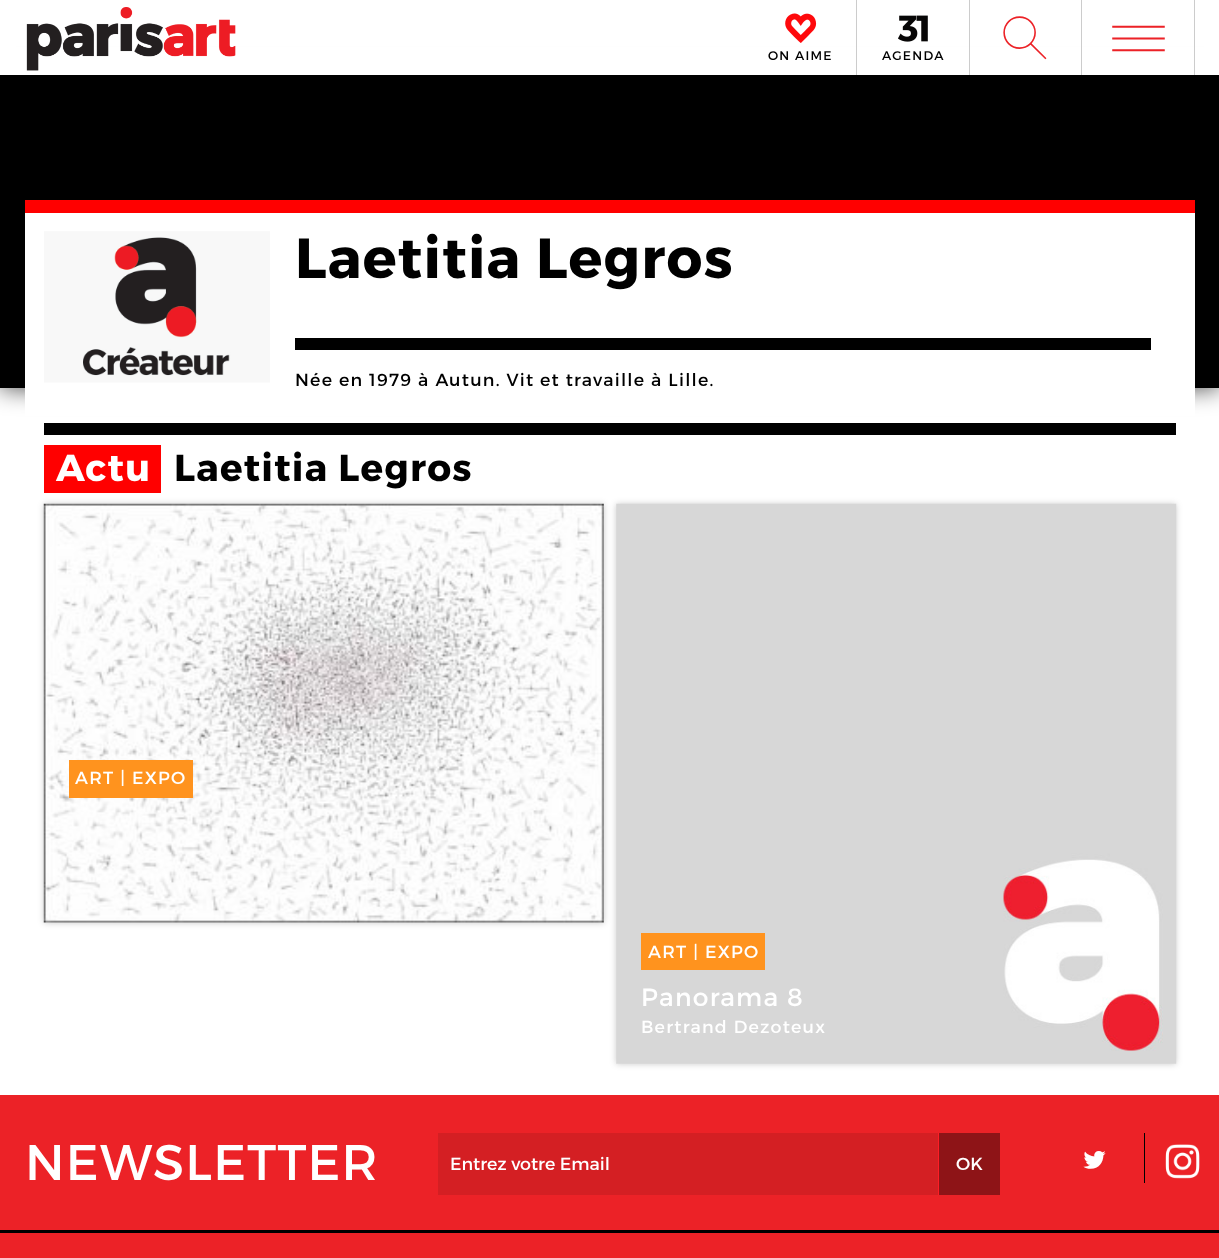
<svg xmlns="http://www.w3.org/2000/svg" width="1219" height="1258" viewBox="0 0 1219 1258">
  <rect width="100%" height="100%" fill="#fff"/>
  <path d="M0 75h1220v313H0z" fill="#000000bf" filter="blur(12.5px)"/>
  <path d="M0 47h1219v28H0z" fill="#fff"/>
  <image x="26" y="7" width="210" height="64" href="img/1.png"/>
  <path d="M1081 0h1v75H1081z" fill="#ccc"/>
  <path d="M1194 0h1v75H1194z" fill="#ccc"/>
  <path d="M856 0h1v75H856z" fill="#ccc"/>
  <image x="785" y="13" width="32" height="30" href="img/2.png"/>
  <path d="M969 0h1v75H969z" fill="#ccc"/>
  <image x="898" y="15" width="30" height="27" href="img/3.png"/>
  <path d="M0 75h1219v313H0z" fill="#000"/>
  <path d="M25 213h1170v203H25z" fill="#fff"/>
  <path d="M25 200h1170v13H25z" fill="#f00"/>
  <image x="44" y="231" width="226" height="152" href="img/4.png"/>
  <path d="M295 338h856v12H295z" fill="#000"/>
  <path d="M44 423h1132v12H44z" fill="#000"/>
  <path d="M44 445h117v48H44z" fill="#f00"/>
  <path d="M44 504h560v419H44z" fill="#00000033" filter="blur(3px)"/>
  <image x="43" y="503" width="561" height="420" href="img/5.png"/>
  <path d="M69 760h124v38H69z" fill="#ff931e"/>
  <path d="M616 504h560v560H616z" fill="#00000033" filter="blur(3px)"/>
  <image x="616" y="503" width="561" height="561" href="img/6.png"/>
  <path d="M641 933h124v37H641z" fill="#ff931e"/>
  <path d="M0 1095h1219v163H0z" fill="#ec2227"/>
  <path d="M438 1133h500v62H438z" fill="#d41f23"/>
  <path d="M939 1133h61v62H939z" fill="#8e1417"/>
  <path d="M938 1133h1v62H938z" fill="#ff1d25"/>
  <path d="M1144 1133h1v50H1144z" fill="#000"/>
  <image x="1165" y="1144" width="35" height="35" href="img/7.png"/>
  <path d="M0 1230h1219v3H0z" fill="#000"/>
  <text x="994" y="69" font-family="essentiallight" font-size="62" font-weight="300" letter-spacing="1.25" fill="#ec2227">W</text>
  <text x="1098" y="79" font-family="essentiallight" font-size="81" font-weight="300" fill="#ec2227">m</text>
  <g font-family="Montserrat" font-size="12.5" letter-spacing="1.25" fill="#000">
    <text x="768" y="60">ON AIME</text>
    <text x="882" y="60">AGENDA</text>
  </g>
  <text x="295" y="278" font-family="Montserrat" font-size="56.25" font-weight="bold" letter-spacing="1.25" fill="#000">Laetitia Legros</text>
  <text x="295" y="386" font-family="Montserrat" font-size="17.5" letter-spacing="1.25" fill="#000">Née en 1979 à Autun. Vit et travaille à Lille.</text>
  <text x="56" y="481" font-family="Montserrat" font-size="37.5" font-weight="bold" letter-spacing="1.25" fill="#fff">Actu</text>
  <text x="174" y="481" font-family="Montserrat" font-size="37.5" font-weight="bold" letter-spacing="1.25" fill="#000">Laetitia Legros</text>
  <g font-family="Montserrat" font-size="17.5" letter-spacing="1.25" fill="#fff">
    <text x="75" y="784">ART | EXPO</text>
    <text x="648" y="958">ART | EXPO</text>
  </g>
  <text x="641" y="1006" font-family="Montserrat" font-size="25" letter-spacing="1.25" fill="#fff">Panorama 8</text>
  <text x="641" y="1033" font-family="Montserrat" font-size="17.5" letter-spacing="1.25" fill="#fff">Bertrand Dezoteux</text>
  <text x="25" y="1180" font-family="Montserrat" font-size="50" letter-spacing="1.25" fill="#fff">NEWSLETTER</text>
  <g font-family="Montserrat" font-size="17.5" fill="#fff">
    <text x="450" y="1170">Entrez votre Email</text>
    <text x="956" y="1170">OK</text>
  </g>
  <text x="1079" y="1173" font-family="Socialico" font-size="37.5" letter-spacing="1.25" fill="#fff">L</text>
</svg>
